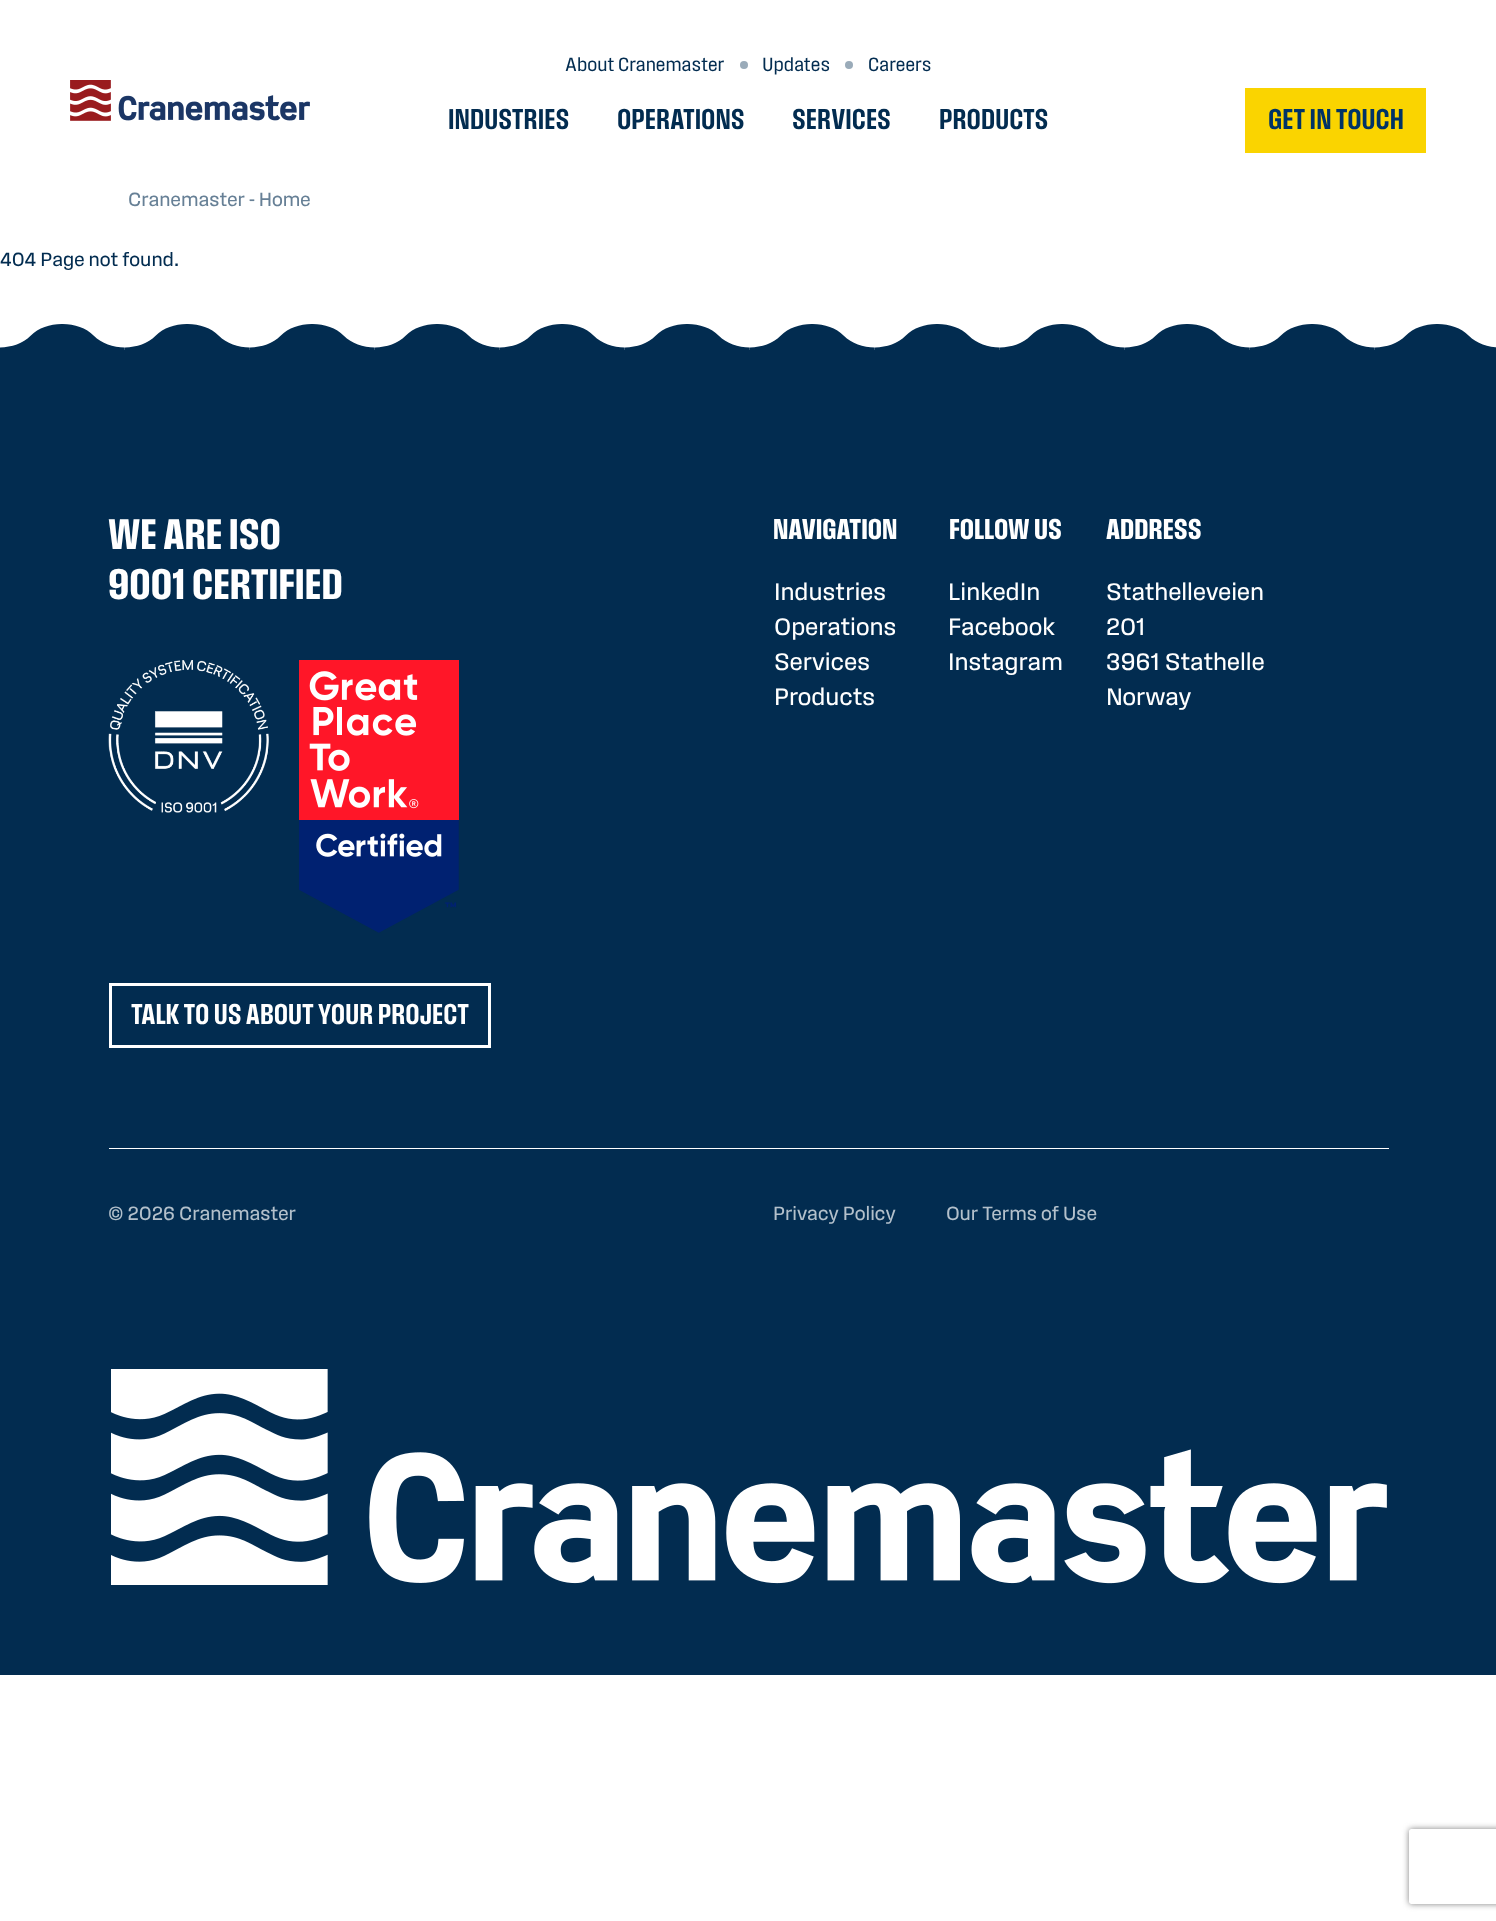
<svg xmlns="http://www.w3.org/2000/svg" width="1496" height="1921" viewBox="0 0 1496 1921">
  <defs>
    <clipPath id="clip1"><path d="M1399 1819H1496V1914H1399ZM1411.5 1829H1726.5C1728 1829 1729 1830 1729 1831.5V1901.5C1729 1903 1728 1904 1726.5 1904H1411.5C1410 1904 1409 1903 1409 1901.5V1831.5C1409 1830 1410 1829 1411.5 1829Z" clip-rule="evenodd"/></clipPath>
  </defs>
  <rect width="100%" height="100%" fill="#fff"/>
  <circle cx="744" cy="65" r="4" fill="#9aabb9"/>
  <circle cx="849" cy="65" r="4" fill="#9aabb9"/>
  <image x="70" y="80" width="240" height="41" href="img/1.png"/>
  <path d="M1245 88h181v65H1245z" fill="#fad400"/>
  <image x="0" y="324" width="1496" height="26" href="img/2.png"/>
  <path d="M0 350h1496v1325H0z" fill="#022c50"/>
  <image x="108" y="660" width="161" height="153" href="img/3.png"/>
  <image x="299" y="660" width="160" height="273" href="img/4.png"/>
  <path d="M110.5 984.5h379v62H110.5z" fill="none" stroke="#fff" stroke-width="3"/>
  <path d="M109 1148h1280v1H109z" fill="#fff"/>
  <image x="111" y="1369" width="1276" height="216" href="img/5.png"/>
  <g clip-path="url(#clip1)">
    <rect x="1409" y="1829" width="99" height="75" rx="2.5" fill="#808080" filter="blur(3px)"/>
  </g>
  <g font-family="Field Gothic" font-size="20" fill="#022c50">
    <text x="565" y="71">About Cranemaster</text>
    <text x="762" y="71">Updates</text>
    <text x="868" y="71">Careers</text>
  </g>
  <g font-family="Field Gothic" font-size="30" font-weight="600" fill="#022c50">
    <text x="448" y="129">INDUSTRIES</text>
    <text x="617" y="129">OPERATIONS</text>
    <text x="792" y="129">SERVICES</text>
    <text x="939" y="129">PRODUCTS</text>
  </g>
  <text x="1268" y="129" font-family="Field Gothic" font-size="30" font-weight="600" fill="#036">GET IN TOUCH</text>
  <text x="128" y="206" font-family="'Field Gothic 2'" font-size="20" fill="#678096">Cranemaster - Home</text>
  <text x="0" y="266" font-family="'Field Gothic 2'" font-size="20" fill="#022c50">404 Page not found.</text>
  <g font-family="Field Gothic" font-size="45" font-weight="bold" fill="#fff">
    <text x="108" y="549">WE ARE ISO</text>
    <text x="108" y="599">9001 CERTIFIED</text>
  </g>
  <text x="131" y="1024" font-family="Field Gothic" font-size="30" font-weight="600" fill="#fff">TALK TO US ABOUT YOUR PROJECT</text>
  <text x="773" y="539" font-family="Field Gothic" font-size="30" font-weight="bold" fill="#fff">NAVIGATION</text>
  <g font-family="'Field Gothic 2'" font-size="25" fill="#fff">
    <text x="774" y="600">Industries</text>
    <text x="774" y="635">Operations</text>
    <text x="774" y="670">Services</text>
    <text x="774" y="705">Products</text>
  </g>
  <text x="949" y="539" font-family="Field Gothic" font-size="30" font-weight="bold" fill="#fff">FOLLOW US</text>
  <g font-family="'Field Gothic 2'" font-size="25" fill="#fff">
    <text x="948" y="600">LinkedIn</text>
    <text x="948" y="635">Facebook</text>
    <text x="948" y="670">Instagram</text>
  </g>
  <text x="1106" y="539" font-family="Field Gothic" font-size="30" font-weight="bold" fill="#fff">ADDRESS</text>
  <g font-family="'Field Gothic 2'" font-size="25" fill="#fff">
    <text x="1106" y="600">Stathelleveien</text>
    <text x="1106" y="635">201</text>
    <text x="1106" y="670">3961 Stathelle</text>
    <text x="1106" y="705">Norway</text>
  </g>
  <g font-family="'Field Gothic 2'" font-size="20" fill="#b3c0cb">
    <text x="108" y="1220">© 2026 Cranemaster</text>
    <text x="773" y="1220">Privacy Policy</text>
    <text x="946" y="1220">Our Terms of Use</text>
  </g>
</svg>
